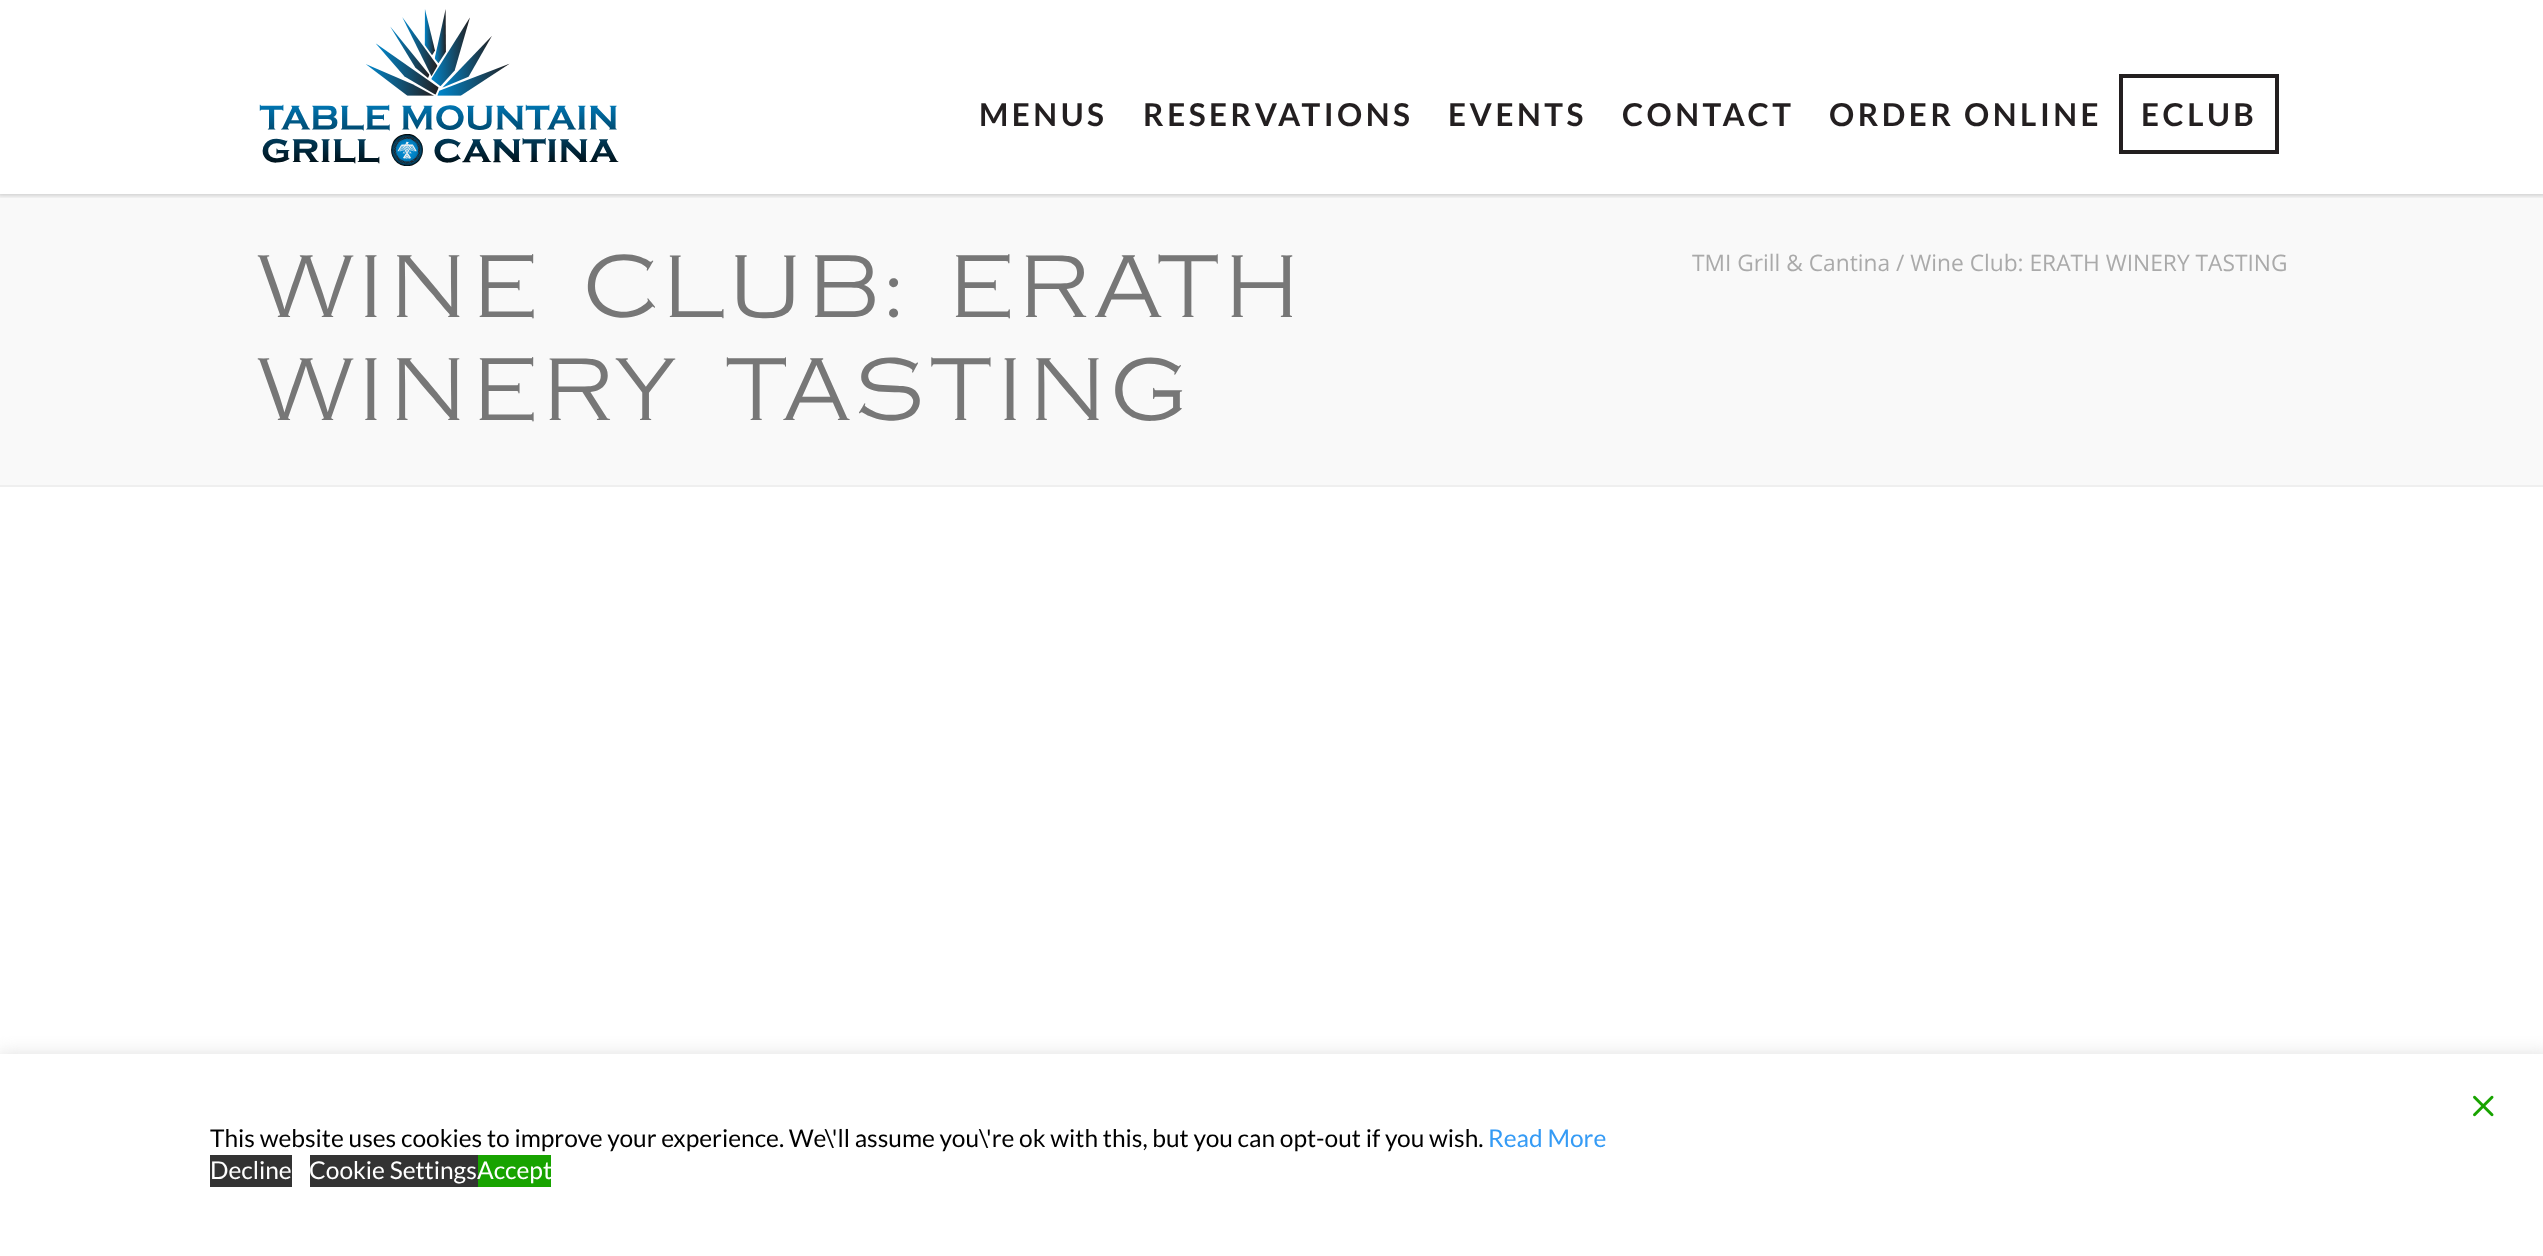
<svg xmlns="http://www.w3.org/2000/svg" width="2543" height="1256" viewBox="0 0 2543 1256">
  <defs>
    <clipPath id="clip1"><path d="M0 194h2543v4H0z"/></clipPath>
    <clipPath id="clip2"><path d="M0 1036h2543v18H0z"/></clipPath>
  </defs>
  <rect width="100%" height="100%" fill="#fff"/>
  <path d="M0 194h2543v291H0z" fill="#f9f9f9"/>
  <g clip-path="url(#clip1)">
    <path d="M-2 -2h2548v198H-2z" fill="#00000029" filter="blur(2px)"/>
  </g>
  <image x="259" y="9" width="360" height="157" href="img/1.png"/>
  <path d="M2121 76h156v76H2121z" fill="none" stroke="#231f20" stroke-width="4"/>
  <path d="M0 485h2543v2H0z" fill="#efefef"/>
  <g clip-path="url(#clip2)">
    <path d="M-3 1055h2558v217H-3z" fill="#ddd" filter="blur(9.5px)"/>
  </g>
  <image x="2473" y="1095" width="21" height="22" href="img/2.png"/>
  <path d="M210 1155h82v32H210z" fill="#333"/>
  <path d="M310 1155h168v32H310z" fill="#333"/>
  <path d="M478 1155h73v32H478z" fill="#18a300"/>
  <g font-family="Lato" font-size="31.5" font-weight="bold" letter-spacing="3.5" fill="#231f20">
    <text x="979" y="126">MENUS</text>
    <text x="1143" y="126">RESERVATIONS</text>
    <text x="1448" y="126">EVENTS</text>
    <text x="1622" y="126">CONTACT</text>
    <text x="1829" y="126">ORDER ONLINE</text>
    <text x="2141" y="126">ECLUB</text>
  </g>
  <g font-family="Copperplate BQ" font-size="87.5" font-weight="300" letter-spacing="4.4" fill="#777">
    <text x="257" y="317">WINE CLUB: ERATH</text>
    <text x="257" y="420">WINERY TASTING</text>
  </g>
  <text x="1692" y="271" font-family="Open Sans" font-size="22.75" fill="#aaa">TMI Grill &amp; Cantina / Wine Club: ERATH WINERY TASTING</text>
  <text x="210" y="1147" font-family="Lato" font-size="24.5" fill="#000">This website uses cookies to improve your experience. We\'ll assume you\'re ok with this, but you can opt-out if you wish.</text>
  <text x="1488" y="1147" font-family="Lato" font-size="24.5" fill="#359bf5">Read More</text>
  <g font-family="Lato" font-size="24.5" fill="#fff">
    <text x="210" y="1179">Decline</text>
    <text x="309" y="1179">Cookie Settings</text>
    <text x="477" y="1179">Accept</text>
  </g>
</svg>
